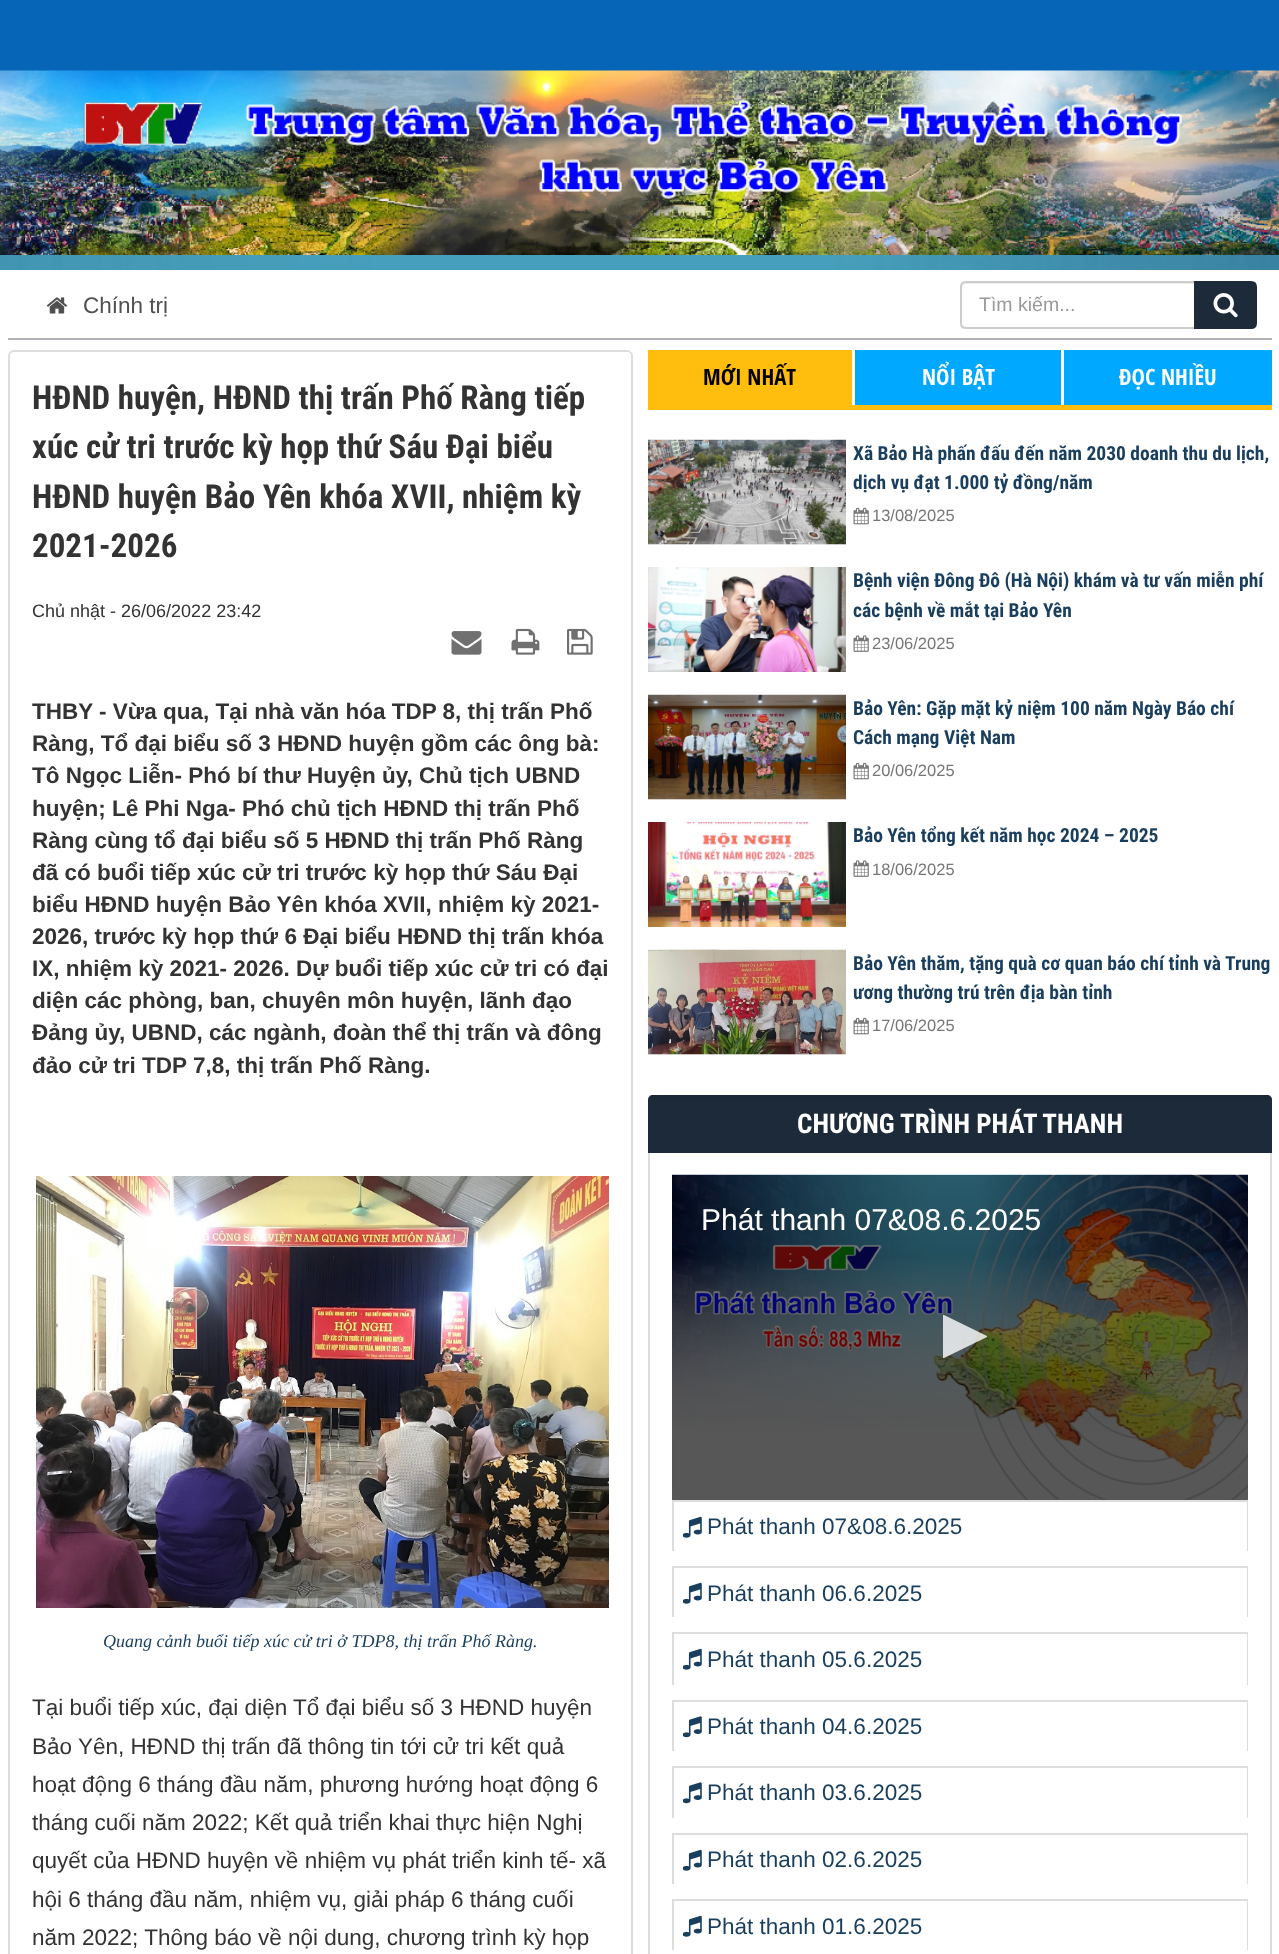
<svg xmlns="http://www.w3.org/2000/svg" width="1279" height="1954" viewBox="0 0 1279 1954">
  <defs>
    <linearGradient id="g1" gradientUnits="userSpaceOnUse" x1="960" y1="1095" x2="960" y2="1151"><stop offset="0" stop-color="#000" stop-opacity="0.05"/><stop offset="1" stop-color="#000" stop-opacity="0"/></linearGradient>
  </defs>
  <rect width="100%" height="100%" fill="#fff"/>
  <image x="0" y="255" width="1279" height="15" href="img/1.png"/>
  <path d="M0 0h1279v71H0z" fill="#0665b7"/>
  <image x="0" y="70" width="1279" height="185" href="img/2.png"/>
  <path d="M8 338h1264v2H8z" fill="#b1b1b8"/>
  <image x="46" y="297" width="21" height="17" href="img/3.png"/>
  <path d="M966 284H1194V282H967C964 282 962 285 962 288C962 286 964 284 966 284Z" fill="#ececec"/>
  <path d="M966 282H1195V328H966C963 328 961 326 961 323V287C961 284 963 282 966 282Z" fill="none" stroke="#ccc" stroke-width="2"/>
  <path d="M1195 282H1251C1254 282 1256 284 1256 287V323C1256 326 1254 328 1251 328H1195Z" fill="#1c2a39" stroke="#1c2a39" stroke-width="2"/>
  <image x="1213" y="293" width="25" height="25" href="img/4.png"/>
  <rect x="9" y="351" width="623" height="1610" rx="5" fill="none" stroke="#ddd" stroke-width="2"/>
  <image x="451" y="631" width="31" height="24" href="img/5.png"/>
  <image x="511" y="628" width="29" height="27" href="img/6.png"/>
  <image x="567" y="628" width="26" height="27" href="img/7.png"/>
  <image x="36" y="1176" width="573" height="432" href="img/8.png"/>
  <path d="M648 405h624v5H648z" fill="#ffbd0d"/>
  <path d="M648 350h204v55H648z" fill="#ffbd0d"/>
  <path d="M855 350h206v55H855z" fill="#00a8ff"/>
  <path d="M1064 350h208v55H1064z" fill="#00a8ff"/>
  <path d="M648 544h198v1H648z" fill="#f6f6f6"/>
  <image x="648" y="439" width="198" height="106" href="img/9.png"/>
  <image x="853" y="507" width="16" height="18" href="img/10.png"/>
  <image x="648" y="567" width="198" height="105" href="img/11.png"/>
  <image x="853" y="635" width="16" height="17" href="img/12.png"/>
  <path d="M648 799h198v1H648z" fill="#f6f6f6"/>
  <image x="648" y="694" width="198" height="106" href="img/13.png"/>
  <image x="853" y="762" width="16" height="18" href="img/10.png"/>
  <image x="648" y="822" width="198" height="105" href="img/14.png"/>
  <image x="853" y="860" width="16" height="17" href="img/12.png"/>
  <path d="M648 1054h198v1H648z" fill="#f6f6f6"/>
  <image x="648" y="949" width="198" height="106" href="img/15.png"/>
  <image x="853" y="1017" width="16" height="18" href="img/10.png"/>
  <rect x="649" y="1096" width="622" height="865" rx="5" fill="none" stroke="#ddd" stroke-width="2"/>
  <path d="M653 1095H1267C1270 1095 1272 1097 1272 1100V1152H648V1100C648 1097 650 1095 653 1095Z" fill="#1c2a39"/>
  <path d="M648 1095h624v5H648z" fill="url(#g1)"/>
  <path d="M648 1152h624v1H648z" fill="#1c2a39"/>
  <image x="672" y="1174" width="576" height="326" href="img/16.png"/>
  <path d="M944 1358H943V1315H944L987 1336V1337Z" fill="#ffffffcc"/>
  <path d="M672 1500h576v2H672z" fill="#ddd"/>
  <path d="M1247 1500h1v51H1247z" fill="#ddd"/>
  <path d="M672 1500h2v51H672z" fill="#ddd"/>
  <image x="683" y="1516" width="19" height="22" href="img/17.png"/>
  <path d="M672 1566h576v2H672z" fill="#ddd"/>
  <path d="M1247 1566h1v51H1247z" fill="#ddd"/>
  <path d="M672 1566h2v51H672z" fill="#ddd"/>
  <image x="683" y="1582" width="19" height="22" href="img/17.png"/>
  <path d="M672 1632h576v2H672z" fill="#ddd"/>
  <path d="M1247 1632h1v53H1247z" fill="#ddd"/>
  <path d="M672 1632h2v53H672z" fill="#ddd"/>
  <image x="683" y="1648" width="19" height="22" href="img/17.png"/>
  <path d="M672 1700h576v2H672z" fill="#ddd"/>
  <path d="M1247 1700h1v51H1247z" fill="#ddd"/>
  <path d="M672 1700h2v51H672z" fill="#ddd"/>
  <image x="683" y="1716" width="19" height="22" href="img/18.png"/>
  <path d="M672 1766h576v2H672z" fill="#ddd"/>
  <path d="M1247 1766h1v52H1247z" fill="#ddd"/>
  <path d="M672 1766h2v52H672z" fill="#ddd"/>
  <image x="683" y="1782" width="19" height="22" href="img/18.png"/>
  <path d="M672 1833h576v2H672z" fill="#ddd"/>
  <path d="M1247 1833h1v51H1247z" fill="#ddd"/>
  <path d="M672 1833h2v51H672z" fill="#ddd"/>
  <image x="683" y="1849" width="19" height="22" href="img/17.png"/>
  <path d="M672 1899h576v2H672z" fill="#ddd"/>
  <path d="M1247 1899h1v51H1247z" fill="#ddd"/>
  <path d="M672 1899h2v51H672z" fill="#ddd"/>
  <image x="683" y="1915" width="19" height="22" href="img/17.png"/>
  <text x="83" y="313" font-family="Liberation Sans" font-size="22.5" fill="#515050">Chính trị</text>
  <text x="979" y="311" font-family="Liberation Sans" font-size="19.5" fill="#999">Tìm kiếm...</text>
  <g font-family="Roboto Condensed" font-size="33" font-weight="bold" fill="#333">
    <text x="32" y="409">HĐND huyện, HĐND thị trấn Phố Ràng tiếp</text>
    <text x="32" y="458">xúc cử tri trước kỳ họp thứ Sáu Đại biểu</text>
    <text x="32" y="508">HĐND huyện Bảo Yên khóa XVII, nhiệm kỳ</text>
    <text x="32" y="557">2021-2026</text>
  </g>
  <text x="32" y="617" font-family="Liberation Sans" font-size="18" fill="#333">Chủ nhật - 26/06/2022 23:42</text>
  <g font-family="Liberation Sans" font-size="22.5" font-weight="bold" fill="#333">
    <text x="32" y="719">THBY - Vừa qua, Tại nhà văn hóa TDP 8, thị trấn Phố</text>
    <text x="32" y="751">Ràng, Tổ đại biểu số 3 HĐND huyện gồm các ông bà:</text>
    <text x="32" y="783">Tô Ngọc Liễn- Phó bí thư Huyện ủy, Chủ tịch UBND</text>
    <text x="32" y="816">huyện; Lê Phi Nga- Phó chủ tịch HĐND thị trấn Phố</text>
    <text x="32" y="848">Ràng cùng tổ đại biểu số 5 HĐND thị trấn Phố Ràng</text>
    <text x="32" y="880">đã có buổi tiếp xúc cử tri trước kỳ họp thứ Sáu Đại</text>
    <text x="32" y="912">biểu HĐND huyện Bảo Yên khóa XVII, nhiệm kỳ 2021-</text>
    <text x="32" y="944">2026, trước kỳ họp thứ 6 Đại biểu HĐND thị trấn khóa</text>
    <text x="32" y="976">IX, nhiệm kỳ 2021- 2026. Dự buổi tiếp xúc cử tri có đại</text>
    <text x="32" y="1008">diện các phòng, ban, chuyên môn huyện, lãnh đạo</text>
    <text x="32" y="1040">Đảng ủy, UBND, các ngành, đoàn thể thị trấn và đông</text>
    <text x="32" y="1073">đảo cử tri TDP 7,8, thị trấn Phố Ràng.</text>
  </g>
  <text x="103" y="1647" font-family="Liberation Serif" font-size="18" font-style="italic" fill="#1a3f5e">Quang cảnh buổi tiếp xúc cử tri ở TDP8, thị trấn Phố Ràng.</text>
  <g font-family="Liberation Sans" font-size="22.5" fill="#333">
    <text x="32" y="1715">Tại buổi tiếp xúc, đại diện Tổ đại biểu số 3 HĐND huyện</text>
    <text x="32" y="1754">Bảo Yên, HĐND thị trấn đã thông tin tới cử tri kết quả</text>
    <text x="32" y="1792">hoạt động 6 tháng đầu năm, phương hướng hoạt động 6</text>
    <text x="32" y="1830">tháng cuối năm 2022; Kết quả triển khai thực hiện Nghị</text>
    <text x="32" y="1868">quyết của HĐND huyện về nhiệm vụ phát triển kinh tế- xã</text>
    <text x="32" y="1907">hội 6 tháng đầu năm, nhiệm vụ, giải pháp 6 tháng cuối</text>
    <text x="32" y="1945">năm 2022; Thông báo về nội dung, chương trình kỳ họp</text>
  </g>
  <text x="703" y="385" font-family="Open Sans Condensed" font-size="22.5" font-weight="bold" fill="#000">MỚI NHẤT</text>
  <g font-family="Open Sans Condensed" font-size="22.5" font-weight="bold" fill="#fff">
    <text x="922" y="385">NỔI BẬT</text>
    <text x="1119" y="385">ĐỌC NHIỀU</text>
  </g>
  <g font-family="Roboto Condensed" font-size="19.5" font-weight="bold" fill="#1a3f5e">
    <text x="853" y="460">Xã Bảo Hà phấn đấu đến năm 2030 doanh thu du lịch,</text>
    <text x="853" y="489">dịch vụ đạt 1.000 tỷ đồng/năm</text>
  </g>
  <text x="872" y="521" font-family="Liberation Sans" font-size="16.5" fill="#777">13/08/2025</text>
  <g font-family="Roboto Condensed" font-size="19.5" font-weight="bold" fill="#1a3f5e">
    <text x="853" y="587">Bệnh viện Đông Đô (Hà Nội) khám và tư vấn miễn phí</text>
    <text x="853" y="617">các bệnh về mắt tại Bảo Yên</text>
  </g>
  <text x="872" y="649" font-family="Liberation Sans" font-size="16.5" fill="#777">23/06/2025</text>
  <g font-family="Roboto Condensed" font-size="19.5" font-weight="bold" fill="#1a3f5e">
    <text x="853" y="715">Bảo Yên: Gặp mặt kỷ niệm 100 năm Ngày Báo chí</text>
    <text x="853" y="744">Cách mạng Việt Nam</text>
  </g>
  <text x="872" y="776" font-family="Liberation Sans" font-size="16.5" fill="#777">20/06/2025</text>
  <text x="853" y="842" font-family="Roboto Condensed" font-size="19.5" font-weight="bold" fill="#1a3f5e">Bảo Yên tổng kết năm học 2024 – 2025</text>
  <text x="872" y="875" font-family="Liberation Sans" font-size="16.5" fill="#777">18/06/2025</text>
  <g font-family="Roboto Condensed" font-size="19.5" font-weight="bold" fill="#1a3f5e">
    <text x="853" y="970">Bảo Yên thăm, tặng quà cơ quan báo chí tỉnh và Trung</text>
    <text x="853" y="999">ương thường trú trên địa bàn tỉnh</text>
  </g>
  <text x="872" y="1031" font-family="Liberation Sans" font-size="16.5" fill="#777">17/06/2025</text>
  <text x="797" y="1133" font-family="Roboto Condensed" font-size="27" font-weight="bold" fill="#fff">CHƯƠNG TRÌNH PHÁT THANH</text>
  <text x="701" y="1230" font-family="Liberation Sans" font-size="30" fill="#fff">Phát thanh 07&amp;08.6.2025</text>
  <g font-family="Liberation Sans" font-size="22.5" fill="#1a3f5e">
    <text x="707" y="1534">Phát thanh 07&amp;08.6.2025</text>
    <text x="707" y="1601">Phát thanh 06.6.2025</text>
    <text x="707" y="1667">Phát thanh 05.6.2025</text>
    <text x="707" y="1734">Phát thanh 04.6.2025</text>
    <text x="707" y="1800">Phát thanh 03.6.2025</text>
    <text x="707" y="1867">Phát thanh 02.6.2025</text>
    <text x="707" y="1934">Phát thanh 01.6.2025</text>
  </g>
</svg>
